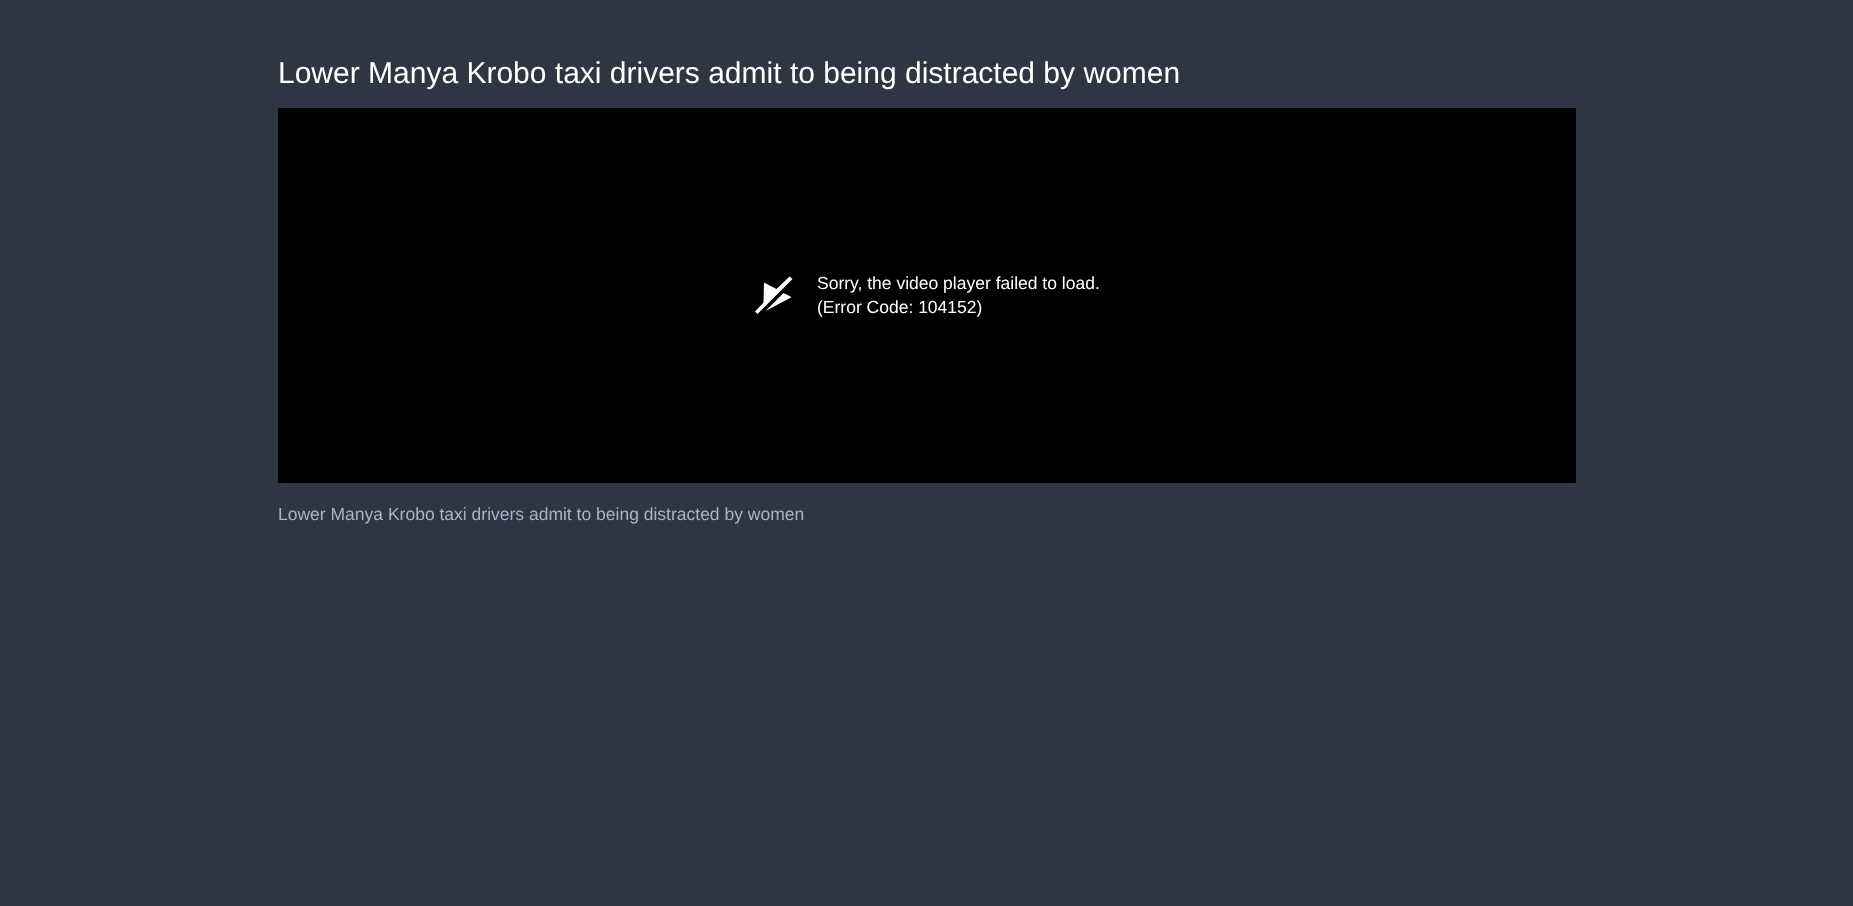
<svg xmlns="http://www.w3.org/2000/svg" width="1853" height="906" viewBox="0 0 1853 906">
  <rect width="100%" height="100%" fill="#2f3542"/>
  <path d="M278 108h1298v375H278z" fill="#000"/>
  <path d="M791 297.5L765.5 311L783.5 293C790.5 296.5 792 297 791 297.5ZM789.5 276.5L776.5 289L764 282.5L763.5 302.5L755 311.5L757.5 314L792.5 279Z" fill="#fff"/>
  <text x="278" y="83" font-family="Liberation Sans" font-size="30" fill="#fff">Lower Manya Krobo taxi drivers admit to being distracted by women</text>
  <g font-family="Liberation Sans" font-size="17.5" fill="#fff">
    <text x="817" y="289">Sorry, the video player failed to load.</text>
    <text x="817" y="313">(Error Code: 104152)</text>
  </g>
  <text x="278" y="520" font-family="Liberation Sans" font-size="17.5" fill="#aab4c8">Lower Manya Krobo taxi drivers admit to being distracted by women</text>
</svg>
